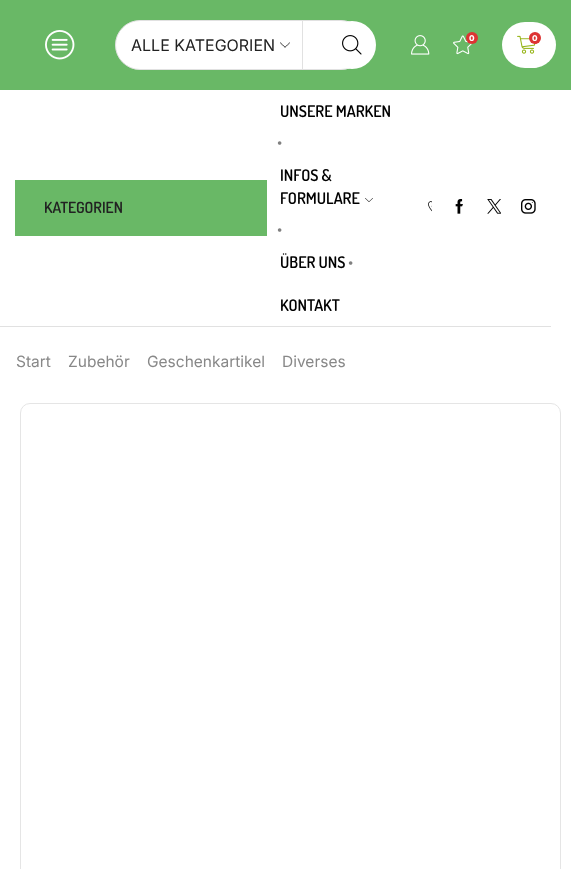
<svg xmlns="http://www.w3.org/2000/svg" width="571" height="869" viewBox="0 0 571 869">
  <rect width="100%" height="100%" fill="#fff"/>
  <path d="M0 0h571v90H0z" fill="#69b866"/>
  <image x="411" y="35" width="19" height="20" href="img/1.png"/>
  <image x="453" y="35" width="20" height="20" href="img/2.png"/>
  <circle cx="472" cy="38" r="6" fill="#d33"/>
  <rect x="502" y="22" width="54" height="46" rx="23" fill="#fff"/>
  <image x="517" y="35" width="19" height="19" href="img/3.png"/>
  <circle cx="535" cy="38" r="6" fill="#d33"/>
  <image x="45" y="30" width="30" height="30" href="img/4.png"/>
  <rect x="115.5" y="20.5" width="250" height="49" rx="24.5" fill="#fff" stroke="#e1e1e1"/>
  <image x="280" y="42" width="10" height="6" href="img/5.png"/>
  <path d="M302 21h1v48H302z" fill="#e1e1e1"/>
  <circle cx="352" cy="45" r="24" fill="#fff"/>
  <image x="342" y="35" width="20" height="20" href="img/6.png"/>
  <path d="M0 326h551v1H0z" fill="#e1e1e1"/>
  <path d="M15 180h252v56H15z" fill="#69b866"/>
  <image x="365" y="198" width="8" height="4" href="img/7.png"/>
  <image x="428" y="201" width="4" height="11" href="img/8.png"/>
  <image x="455" y="199" width="8" height="15" href="img/9.png"/>
  <image x="487" y="199" width="14" height="15" href="img/10.png"/>
  <image x="521" y="199" width="15" height="15" href="img/11.png"/>
  <rect x="20.5" y="403.5" width="540" height="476" rx="9.5" fill="none" stroke="#e5e5e5"/>
  <g font-family="Inter" font-size="8" font-weight="800" fill="#fff">
    <text x="469" y="41">0</text>
    <text x="532" y="41">0</text>
  </g>
  <text x="131" y="51" font-family="Inter" font-size="16" fill="#222">ALLE KATEGORIEN</text>
  <text x="44" y="213" font-family="Dosis" font-size="15.5" font-weight="600" fill="#222">KATEGORIEN</text>
  <text x="280" y="117" font-family="Dosis" font-size="16" font-weight="600" fill="#000">UNSERE MARKEN</text>
  <text x="277" y="148" font-family="Liberation Serif" font-size="15" fill="#808080">•</text>
  <g font-family="Dosis" font-size="16" font-weight="600" fill="#000">
    <text x="280" y="181">INFOS &amp;</text>
    <text x="280" y="204">FORMULARE</text>
  </g>
  <text x="277" y="235" font-family="Liberation Serif" font-size="15" fill="#808080">•</text>
  <text x="280" y="268" font-family="Dosis" font-size="16" font-weight="600" fill="#000">ÜBER UNS</text>
  <text x="348" y="268" font-family="Liberation Serif" font-size="15" fill="#808080">•</text>
  <text x="280" y="311" font-family="Dosis" font-size="16" font-weight="600" fill="#000">KONTAKT</text>
  <g font-family="Inter" font-size="15.5" fill="#888">
    <text x="16" y="367">Start</text>
    <text x="68" y="367">Zubehör</text>
    <text x="147" y="367">Geschenkartikel</text>
    <text x="282" y="367">Diverses</text>
  </g>
</svg>
